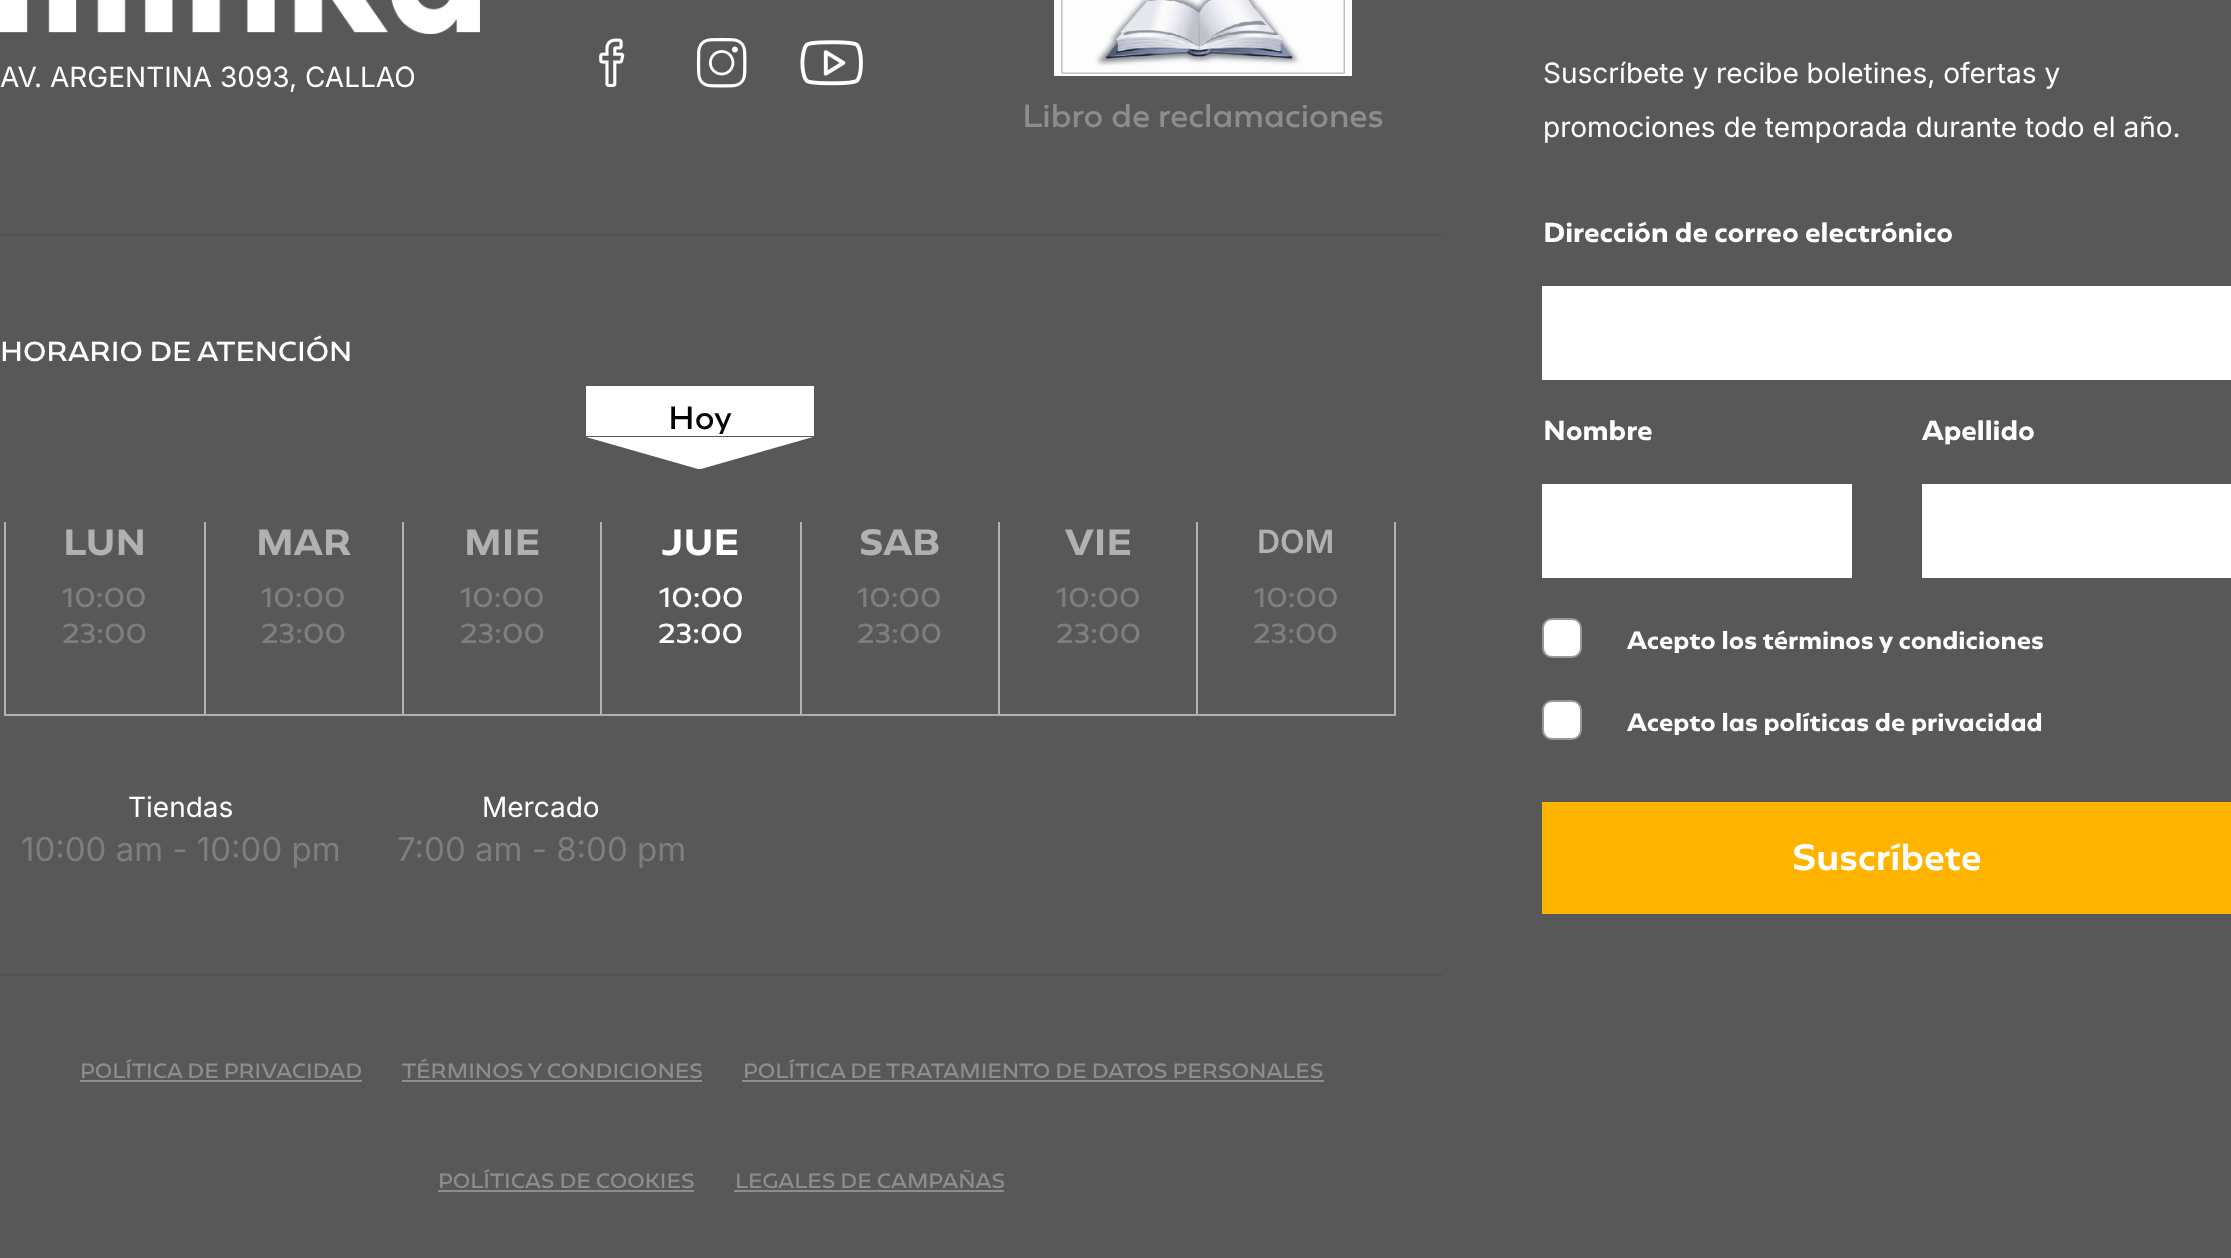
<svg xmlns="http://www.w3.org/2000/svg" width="2231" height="1258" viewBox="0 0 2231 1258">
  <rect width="100%" height="100%" fill="#585858"/>
  <path d="M0 234h1442v2H0z" fill="#515151"/>
  <image x="0" y="0" width="480" height="34" href="img/1.png"/>
  <image x="599" y="38" width="26" height="49" href="img/2.png"/>
  <image x="696" y="38" width="51" height="50" href="img/3.png"/>
  <image x="800" y="40" width="63" height="46" href="img/4.png"/>
  <image x="1054" y="0" width="298" height="76" href="img/5.png"/>
  <path d="M4 714h1192v2H4z" fill="#b1b1b1"/>
  <path d="M4 522h2v194H4z" fill="#b1b1b1"/>
  <path d="M204 522h2v194H204z" fill="#b1b1b1"/>
  <path d="M402 522h2v194H402z" fill="#b1b1b1"/>
  <path d="M586 386h228v50H586z" fill="#fff"/>
  <path d="M586 437H813L701 469H698Z" fill="#fff"/>
  <path d="M600 522h2v194H600z" fill="#b1b1b1"/>
  <path d="M800 522h2v194H800z" fill="#b1b1b1"/>
  <path d="M998 522h2v194H998z" fill="#b1b1b1"/>
  <path d="M1394 522h2v194H1394z" fill="#b1b1b1"/>
  <path d="M1196 714h200v2H1196z" fill="#b1b1b1"/>
  <path d="M1196 522h2v194H1196z" fill="#b1b1b1"/>
  <path d="M0 974h1442v2H0z" fill="#515151"/>
  <path d="M80 1080h282v2H80z" fill="#8d8d8d"/>
  <path d="M402 1080h300v2H402z" fill="#8d8d8d"/>
  <path d="M742 1080h582v2H742z" fill="#8d8d8d"/>
  <path d="M438 1190h256v2H438z" fill="#8d8d8d"/>
  <path d="M734 1190h270v2H734z" fill="#8d8d8d"/>
  <path d="M1542 286h689v94H1542z" fill="#fff"/>
  <path d="M1542 484h310v94H1542z" fill="#fff"/>
  <path d="M1922 484h309v94H1922z" fill="#fff"/>
  <rect x="1543" y="625" width="24" height="24" rx="3" fill="none" stroke="#767676" stroke-width="2"/>
  <rect x="1543" y="619" width="38" height="38" rx="9" fill="#fff" stroke="#989797" stroke-width="2"/>
  <rect x="1543" y="707" width="24" height="24" rx="3" fill="none" stroke="#767676" stroke-width="2"/>
  <rect x="1543" y="701" width="38" height="38" rx="9" fill="#fff" stroke="#989797" stroke-width="2"/>
  <path d="M1542 802h689v112H1542z" fill="#ffb500"/>
  <text x="0" y="87" font-family="Inter" font-size="28" fill="#fff">AV. ARGENTINA 3093, CALLAO</text>
  <text x="1022" y="127" font-family="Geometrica" font-size="28" fill="#8d8d8d">Libro de reclamaciones</text>
  <text x="0" y="361" font-family="Geometrica" font-size="24" fill="#fff">HORARIO DE ATENCIÓN</text>
  <text x="63" y="555" font-family="Geometrica" font-size="32" font-weight="bold" fill="#b1b1b1">LUN</text>
  <g font-family="Geometrica" font-size="24" fill="#7e7e7e">
    <text x="62" y="607">10:00</text>
    <text x="62" y="643">23:00</text>
  </g>
  <text x="256" y="555" font-family="Geometrica" font-size="32" font-weight="bold" fill="#b1b1b1">MAR</text>
  <g font-family="Geometrica" font-size="24" fill="#7e7e7e">
    <text x="261" y="607">10:00</text>
    <text x="261" y="643">23:00</text>
  </g>
  <text x="464" y="555" font-family="Geometrica" font-size="32" font-weight="bold" fill="#b1b1b1">MIE</text>
  <g font-family="Geometrica" font-size="24" fill="#7e7e7e">
    <text x="460" y="607">10:00</text>
    <text x="460" y="643">23:00</text>
  </g>
  <text x="668" y="429" font-family="Geometrica" font-size="28" fill="#000">Hoy</text>
  <text x="662" y="555" font-family="Geometrica" font-size="32" font-weight="bold" fill="#fff">JUE</text>
  <g font-family="Geometrica" font-size="24" fill="#fff">
    <text x="659" y="607">10:00</text>
    <text x="658" y="643">23:00</text>
  </g>
  <text x="859" y="555" font-family="Geometrica" font-size="32" font-weight="bold" fill="#b1b1b1">SAB</text>
  <g font-family="Geometrica" font-size="24" fill="#7e7e7e">
    <text x="857" y="607">10:00</text>
    <text x="857" y="643">23:00</text>
  </g>
  <text x="1065" y="555" font-family="Geometrica" font-size="32" font-weight="bold" fill="#b1b1b1">VIE</text>
  <g font-family="Geometrica" font-size="24" fill="#7e7e7e">
    <text x="1056" y="607">10:00</text>
    <text x="1056" y="643">23:00</text>
  </g>
  <text x="1257" y="553" font-family="Inter" font-size="32" font-weight="600" fill="#b1b1b1">DOM</text>
  <g font-family="Geometrica" font-size="24" fill="#7e7e7e">
    <text x="1254" y="607">10:00</text>
    <text x="1253" y="643">23:00</text>
  </g>
  <text x="128" y="817" font-family="Inter" font-size="28" fill="#fff">Tiendas</text>
  <text x="21" y="861" font-family="Inter" font-size="33" fill="#7e7e7e">10:00 am - 10:00 pm</text>
  <text x="482" y="817" font-family="Inter" font-size="28" fill="#fff">Mercado</text>
  <text x="397" y="861" font-family="Inter" font-size="33" fill="#7e7e7e">7:00 am - 8:00 pm</text>
  <g font-family="Geometrica" font-size="18" fill="#8d8d8d">
    <text x="80" y="1078">POLÍTICA DE PRIVACIDAD</text>
    <text x="402" y="1078">TÉRMINOS Y CONDICIONES</text>
    <text x="743" y="1078">POLÍTICA DE TRATAMIENTO DE DATOS PERSONALES</text>
    <text x="438" y="1188">POLÍTICAS DE COOKIES</text>
    <text x="735" y="1188">LEGALES DE CAMPAÑAS</text>
  </g>
  <g font-family="Inter" font-size="28" fill="#fff">
    <text x="1543" y="83">Suscríbete y recibe boletines, ofertas y</text>
    <text x="1543" y="137">promociones de temporada durante todo el año.</text>
  </g>
  <g font-family="Geometrica" font-size="24" font-weight="bold" fill="#fff">
    <text x="1543" y="242">Dirección de correo electrónico</text>
    <text x="1543" y="440">Nombre</text>
    <text x="1922" y="440">Apellido</text>
  </g>
  <g font-family="Geometrica" font-size="22" font-weight="bold" fill="#fff">
    <text x="1627" y="649">Acepto los términos y condiciones</text>
    <text x="1627" y="731">Acepto las políticas de privacidad</text>
  </g>
  <text x="1792" y="870" font-family="Geometrica" font-size="32" font-weight="500" fill="#fff">Suscríbete</text>
</svg>
